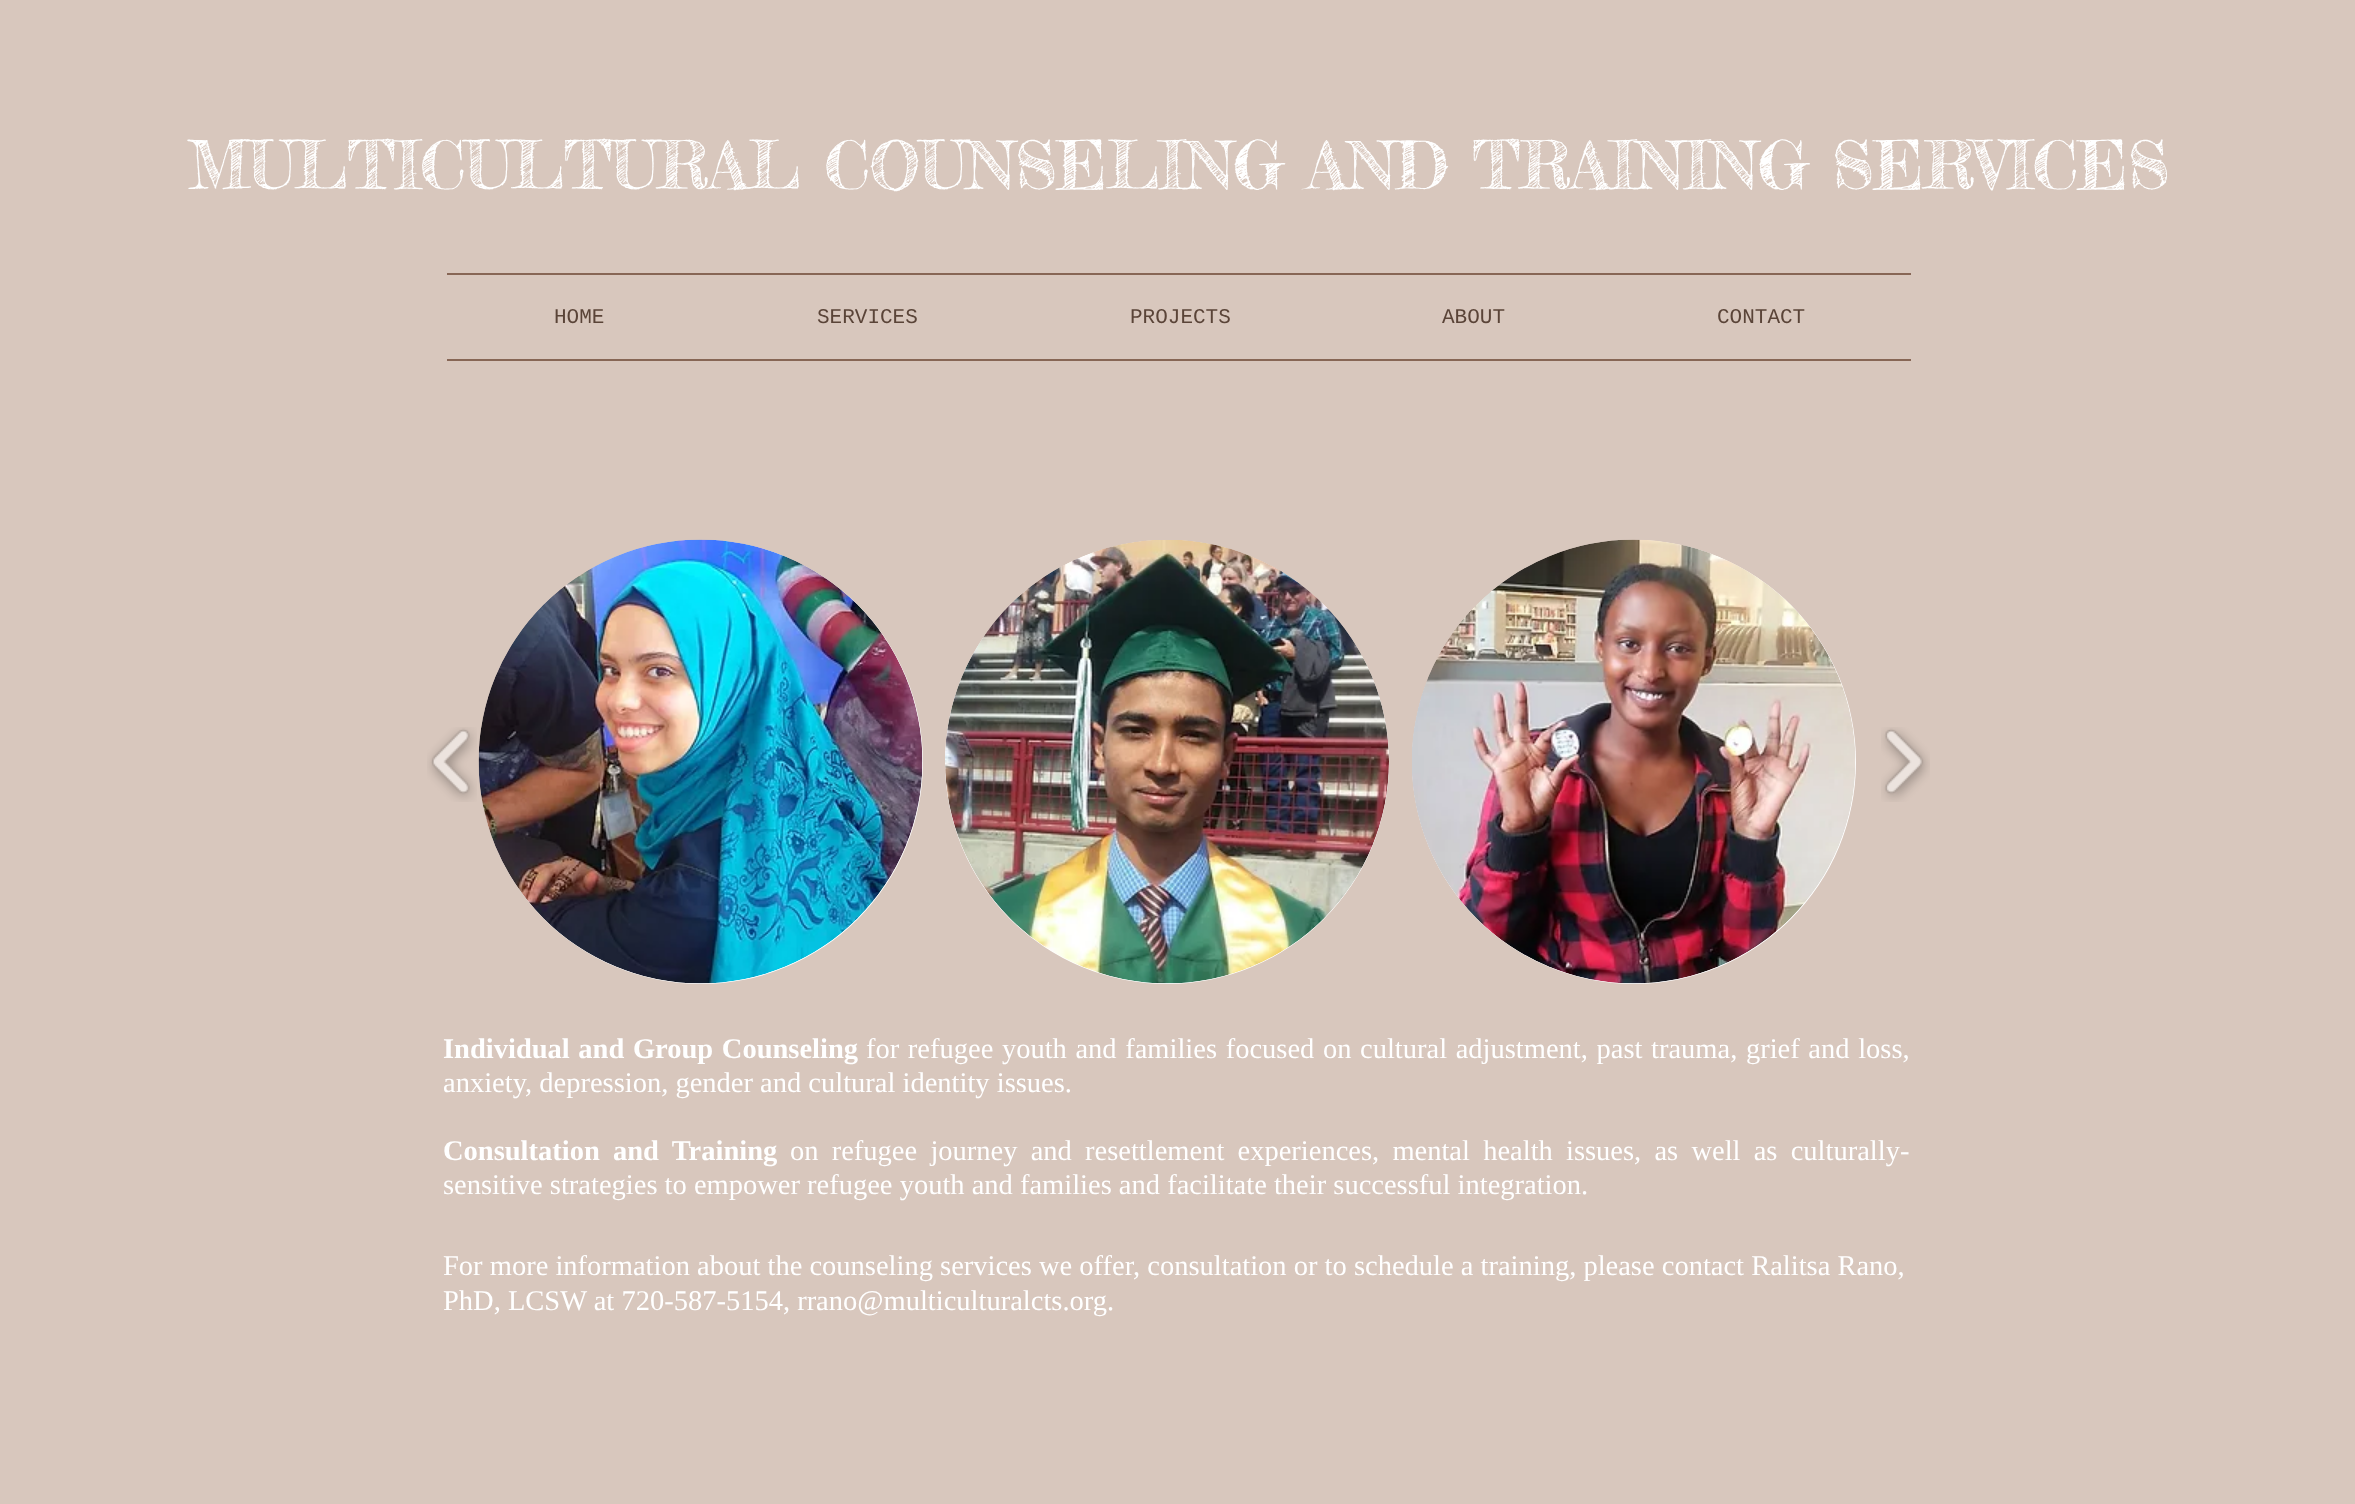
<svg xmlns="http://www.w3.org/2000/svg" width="2355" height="1504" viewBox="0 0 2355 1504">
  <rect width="100%" height="100%" fill="#d8c7bd"/>
  <path d="M447 273h1464v2H447z" fill="#876655"/>
  <path d="M447 359h1464v2H447z" fill="#876655"/>
  <image x="427" y="727" width="50" height="75" href="img/1.png"/>
  <circle cx="701" cy="762" r="222" fill="#fff"/>
  <image x="478" y="539" width="445" height="445" href="img/2.png"/>
  <circle cx="1167" cy="762" r="222" fill="#fff"/>
  <image x="945" y="540" width="444" height="444" href="img/3.png"/>
  <circle cx="1634" cy="762" r="222" fill="#fff"/>
  <image x="1412" y="539" width="444" height="445" href="img/4.png"/>
  <image x="1881" y="727" width="49" height="75" href="img/5.png"/>
  <text x="188" y="189" font-family="Fredericka the Great" font-size="66" fill="#fff">MULTICULTURAL COUNSELING AND TRAINING SERVICES</text>
  <g font-family="Liberation Mono" font-size="21" fill="#5a4438">
    <text x="554" y="323">HOME</text>
    <text x="817" y="323">SERVICES</text>
    <text x="1130" y="323">PROJECTS</text>
    <text x="1442" y="323">ABOUT</text>
    <text x="1717" y="323">CONTACT</text>
  </g>
  <text x="443" y="1058" word-spacing="1.5" font-family="Liberation Serif" font-size="28.5" font-weight="bold" fill="#fff">Individual and Group Counseling</text>
  <g font-family="Liberation Serif" font-size="28.5" fill="#fff">
    <text x="866" y="1058" word-spacing="1.5">for refugee youth and families focused on cultural adjustment, past trauma, grief and loss,</text>
    <text x="443" y="1092">anxiety, depression, gender and cultural identity issues.</text>
  </g>
  <text x="443" y="1160" word-spacing="6.1" font-family="Liberation Serif" font-size="28.5" font-weight="bold" fill="#fff">Consultation and Training</text>
  <g font-family="Liberation Serif" font-size="28.5" fill="#fff">
    <text x="790" y="1160" word-spacing="6.1">on refugee journey and resettlement experiences, mental health issues, as well as culturally-</text>
    <text x="443" y="1194">sensitive strategies to empower refugee youth and families and facilitate their successful integration.</text>
    <text x="443" y="1275">For more information about the counseling services we offer, consultation or to schedule a training, please contact Ralitsa Rano,</text>
    <text x="443" y="1310">PhD, LCSW at 720-587-5154, rrano@multiculturalcts.org.</text>
  </g>
</svg>
